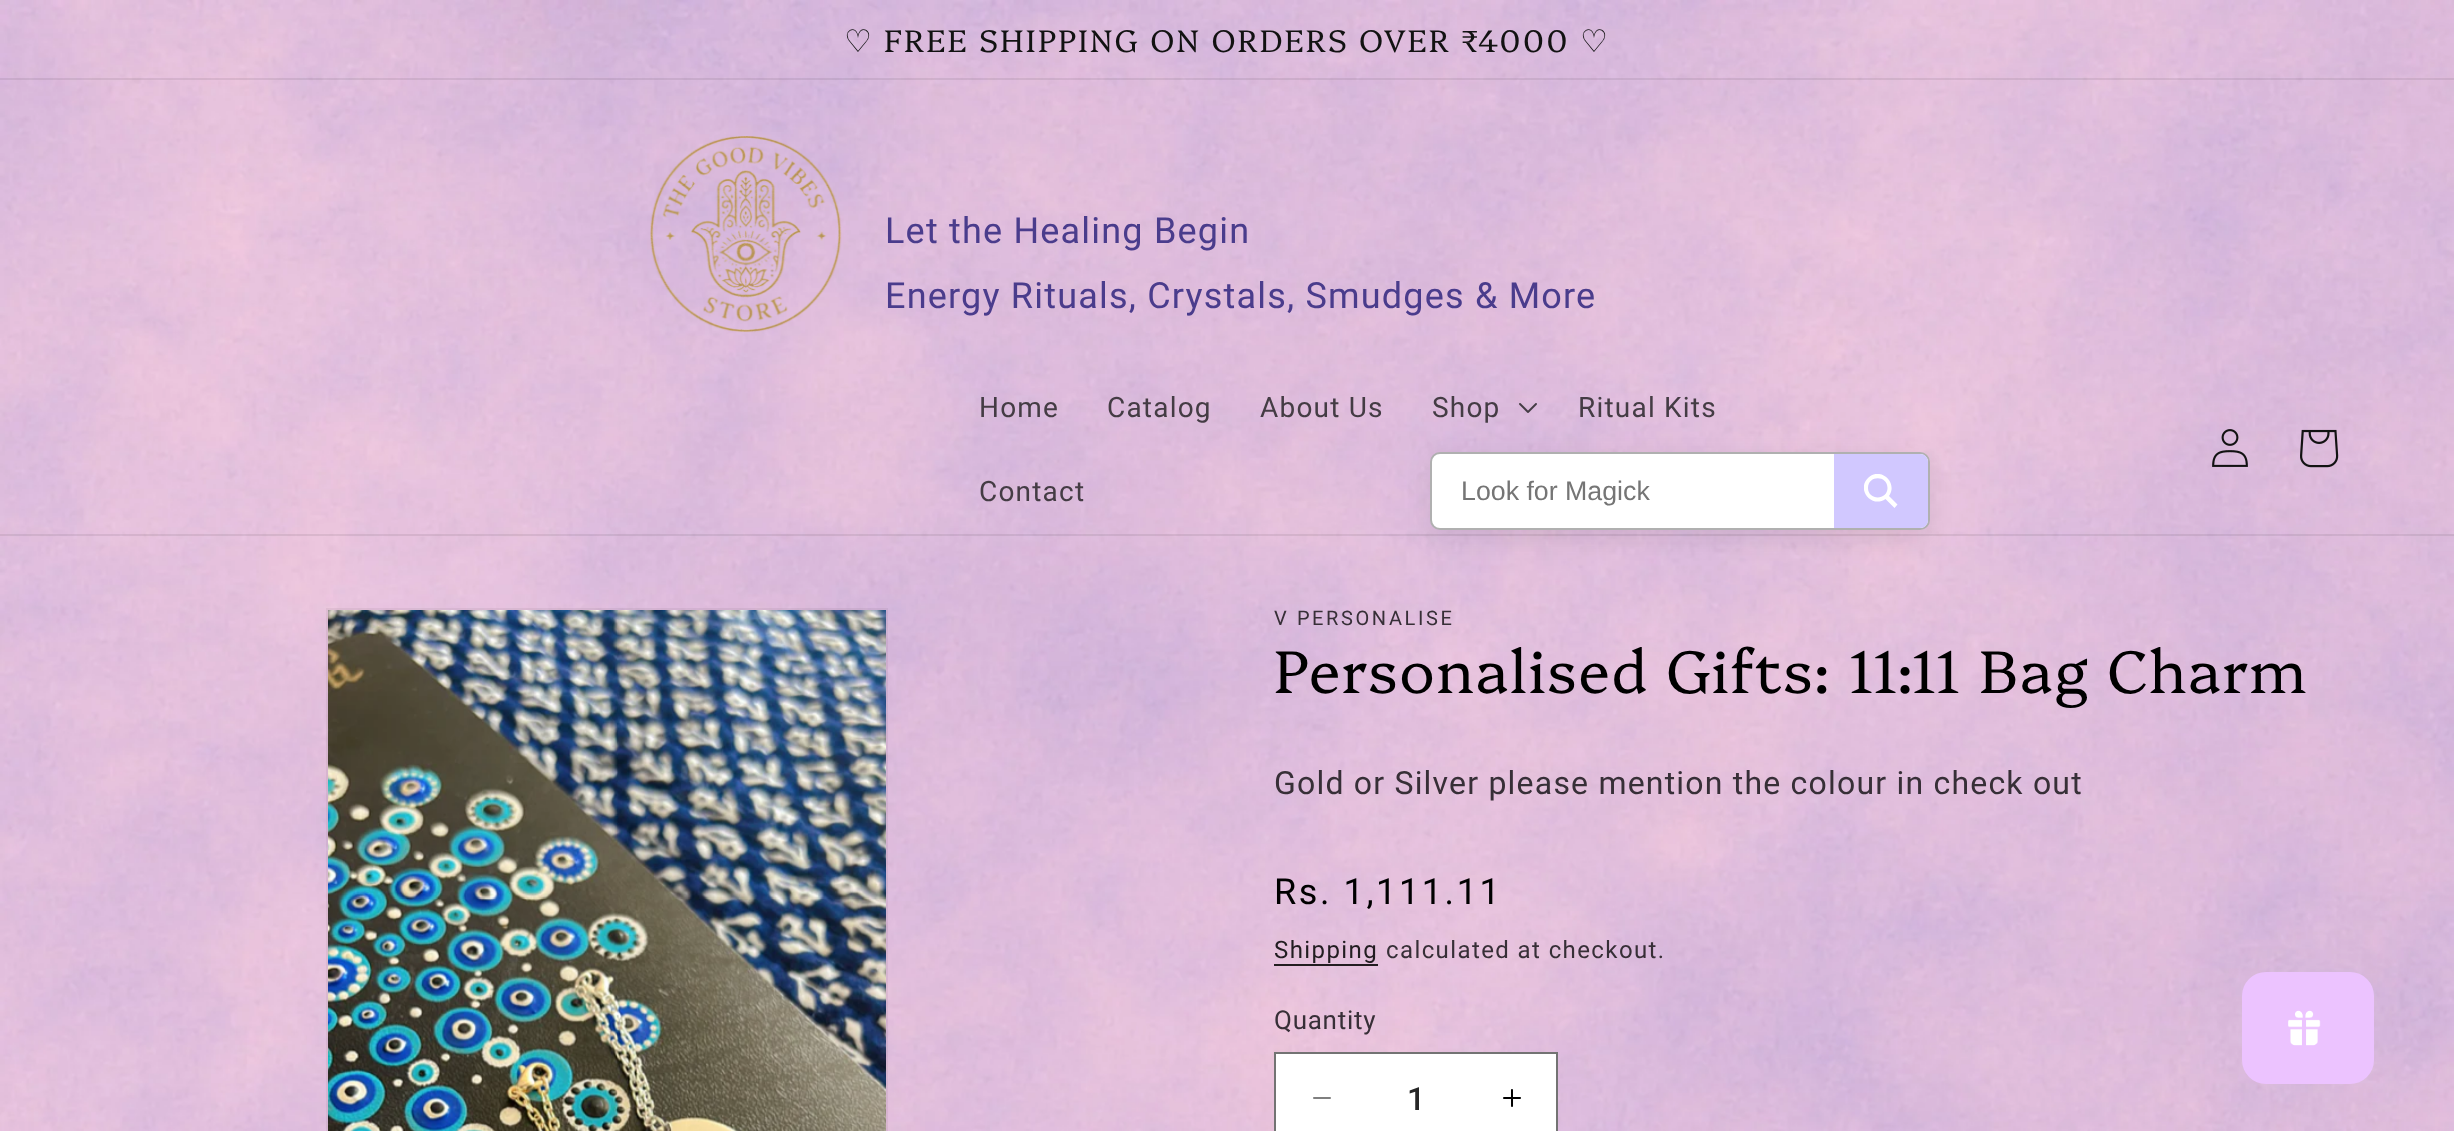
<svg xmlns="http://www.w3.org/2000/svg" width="2454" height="1131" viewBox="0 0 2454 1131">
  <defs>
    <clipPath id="clip1"><path d="M1864 474h34v34H1864z"/></clipPath>
  </defs>
  <rect width="100%" height="100%" fill="#fff"/>
  <image x="0" y="0" width="2454" height="80" href="img/1.png"/>
  <path d="M0 78h2454v2H0z" fill="#12121214"/>
  <image x="0" y="80" width="2454" height="284" href="img/2.png"/>
  <image x="650" y="136" width="192" height="197" href="img/3.png"/>
  <image x="0" y="364" width="2454" height="172" href="img/4.png"/>
  <path d="M0 534h2454v2H0z" fill="#12121214"/>
  <image x="1519" y="403" width="18" height="10" href="img/5.png"/>
  <image x="2212" y="429" width="36" height="38" href="img/6.png"/>
  <image x="2300" y="429" width="39" height="39" href="img/7.png"/>
  <image x="0" y="536" width="2454" height="595" href="img/8.png"/>
  <rect x="1430" y="460" width="500" height="78" rx="10" fill="#00000014" filter="blur(12px)"/>
  <rect x="1431" y="453" width="498" height="76" rx="9" fill="#fff" stroke="#b0b0b0" stroke-width="2"/>
  <path d="M1834 454H1920C1924.5 454 1928 457.5 1928 462V520C1928 524.5 1924.5 528 1920 528H1834Z" fill="#d1c8ff"/>
  <g clip-path="url(#clip1)">
    <path d="M1897.5 504.5L1889 496C1898.5 482.5 1880 466 1868 478C1856 490 1872 508.5 1885.5 499L1894.5 508ZM1868 488C1868 475 1887.5 475 1887.5 488C1887.5 500.5 1868 500.5 1868 488Z" fill="#fff"/>
  </g>
  <image x="326" y="608" width="562" height="523" href="img/9.png"/>
  <path d="M327 609h560v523H327z" fill="none" stroke="#0000000d" stroke-width="2"/>
  <image x="328" y="610" width="558" height="521" href="img/10.png"/>
  <path d="M1274 964h104v2H1274z" fill="#000000d9"/>
  <path d="M1276 1054h280v77H1276z" fill="#fff"/>
  <image x="1313" y="1097" width="18" height="2" href="img/11.png"/>
  <image x="1503" y="1089" width="18" height="18" href="img/12.png"/>
  <path d="M1275 1053h282v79H1275z" fill="none" stroke="#737373" stroke-width="2"/>
  <rect x="2242" y="972" width="132" height="112" rx="24" fill="#ecc3ff"/>
  <image x="2288" y="1010" width="33" height="36" href="img/13.png"/>
  <text x="844" y="52" font-family="DejaVu Sans" font-size="31.2" letter-spacing="2" fill="#121212">♡</text>
  <text x="884" y="52" font-family="Platypi" font-size="31.2" font-weight="300" letter-spacing="2" fill="#121212">FREE SHIPPING ON ORDERS OVER ₹4000</text>
  <text x="1580" y="52" font-family="DejaVu Sans" font-size="31.2" letter-spacing="2" fill="#121212">♡</text>
  <g font-family="Roboto" font-size="36" letter-spacing="1.2" fill="#4a3c8c">
    <text x="885" y="243">Let the Healing Begin</text>
    <text x="885" y="308">Energy Rituals, Crystals, Smudges &amp; More</text>
  </g>
  <g font-family="Roboto" font-size="28" letter-spacing="1.2" fill="#443c44">
    <text x="979" y="417">Home</text>
    <text x="1107" y="417">Catalog</text>
    <text x="1260" y="417">About Us</text>
    <text x="1432" y="417">Shop</text>
    <text x="1578" y="417">Ritual Kits</text>
    <text x="979" y="501">Contact</text>
  </g>
  <text x="1461" y="500" font-family="Liberation Sans" font-size="26.75" fill="#757575">Look for Magick</text>
  <text x="1274" y="625" font-family="Roboto" font-size="20" letter-spacing="2.6" fill="#372f37">V PERSONALISE</text>
  <text x="1274" y="693" font-family="Platypi" font-size="60" font-weight="300" letter-spacing="1.45" fill="#000">Personalised Gifts: 11:11 Bag Charm</text>
  <text x="1274" y="794" font-family="Roboto" font-size="32" letter-spacing="1.2" fill="#372f37">Gold or Silver please mention the colour in check out</text>
  <text x="1274" y="904" font-family="Roboto" font-size="36" letter-spacing="2.6" fill="#000">Rs. 1,111.11</text>
  <text x="1274" y="958" font-family="Roboto" font-size="24" letter-spacing="1.4" fill="#221d21">Shipping</text>
  <text x="1386" y="958" font-family="Roboto" font-size="24" letter-spacing="1.4" fill="#372f37">calculated at checkout.</text>
  <text x="1274" y="1029" font-family="Roboto" font-size="26" letter-spacing="0.75" fill="#372f37">Quantity</text>
  <text x="1407" y="1110" font-family="Roboto" font-size="32" font-weight="500" fill="#262626">1</text>
</svg>
